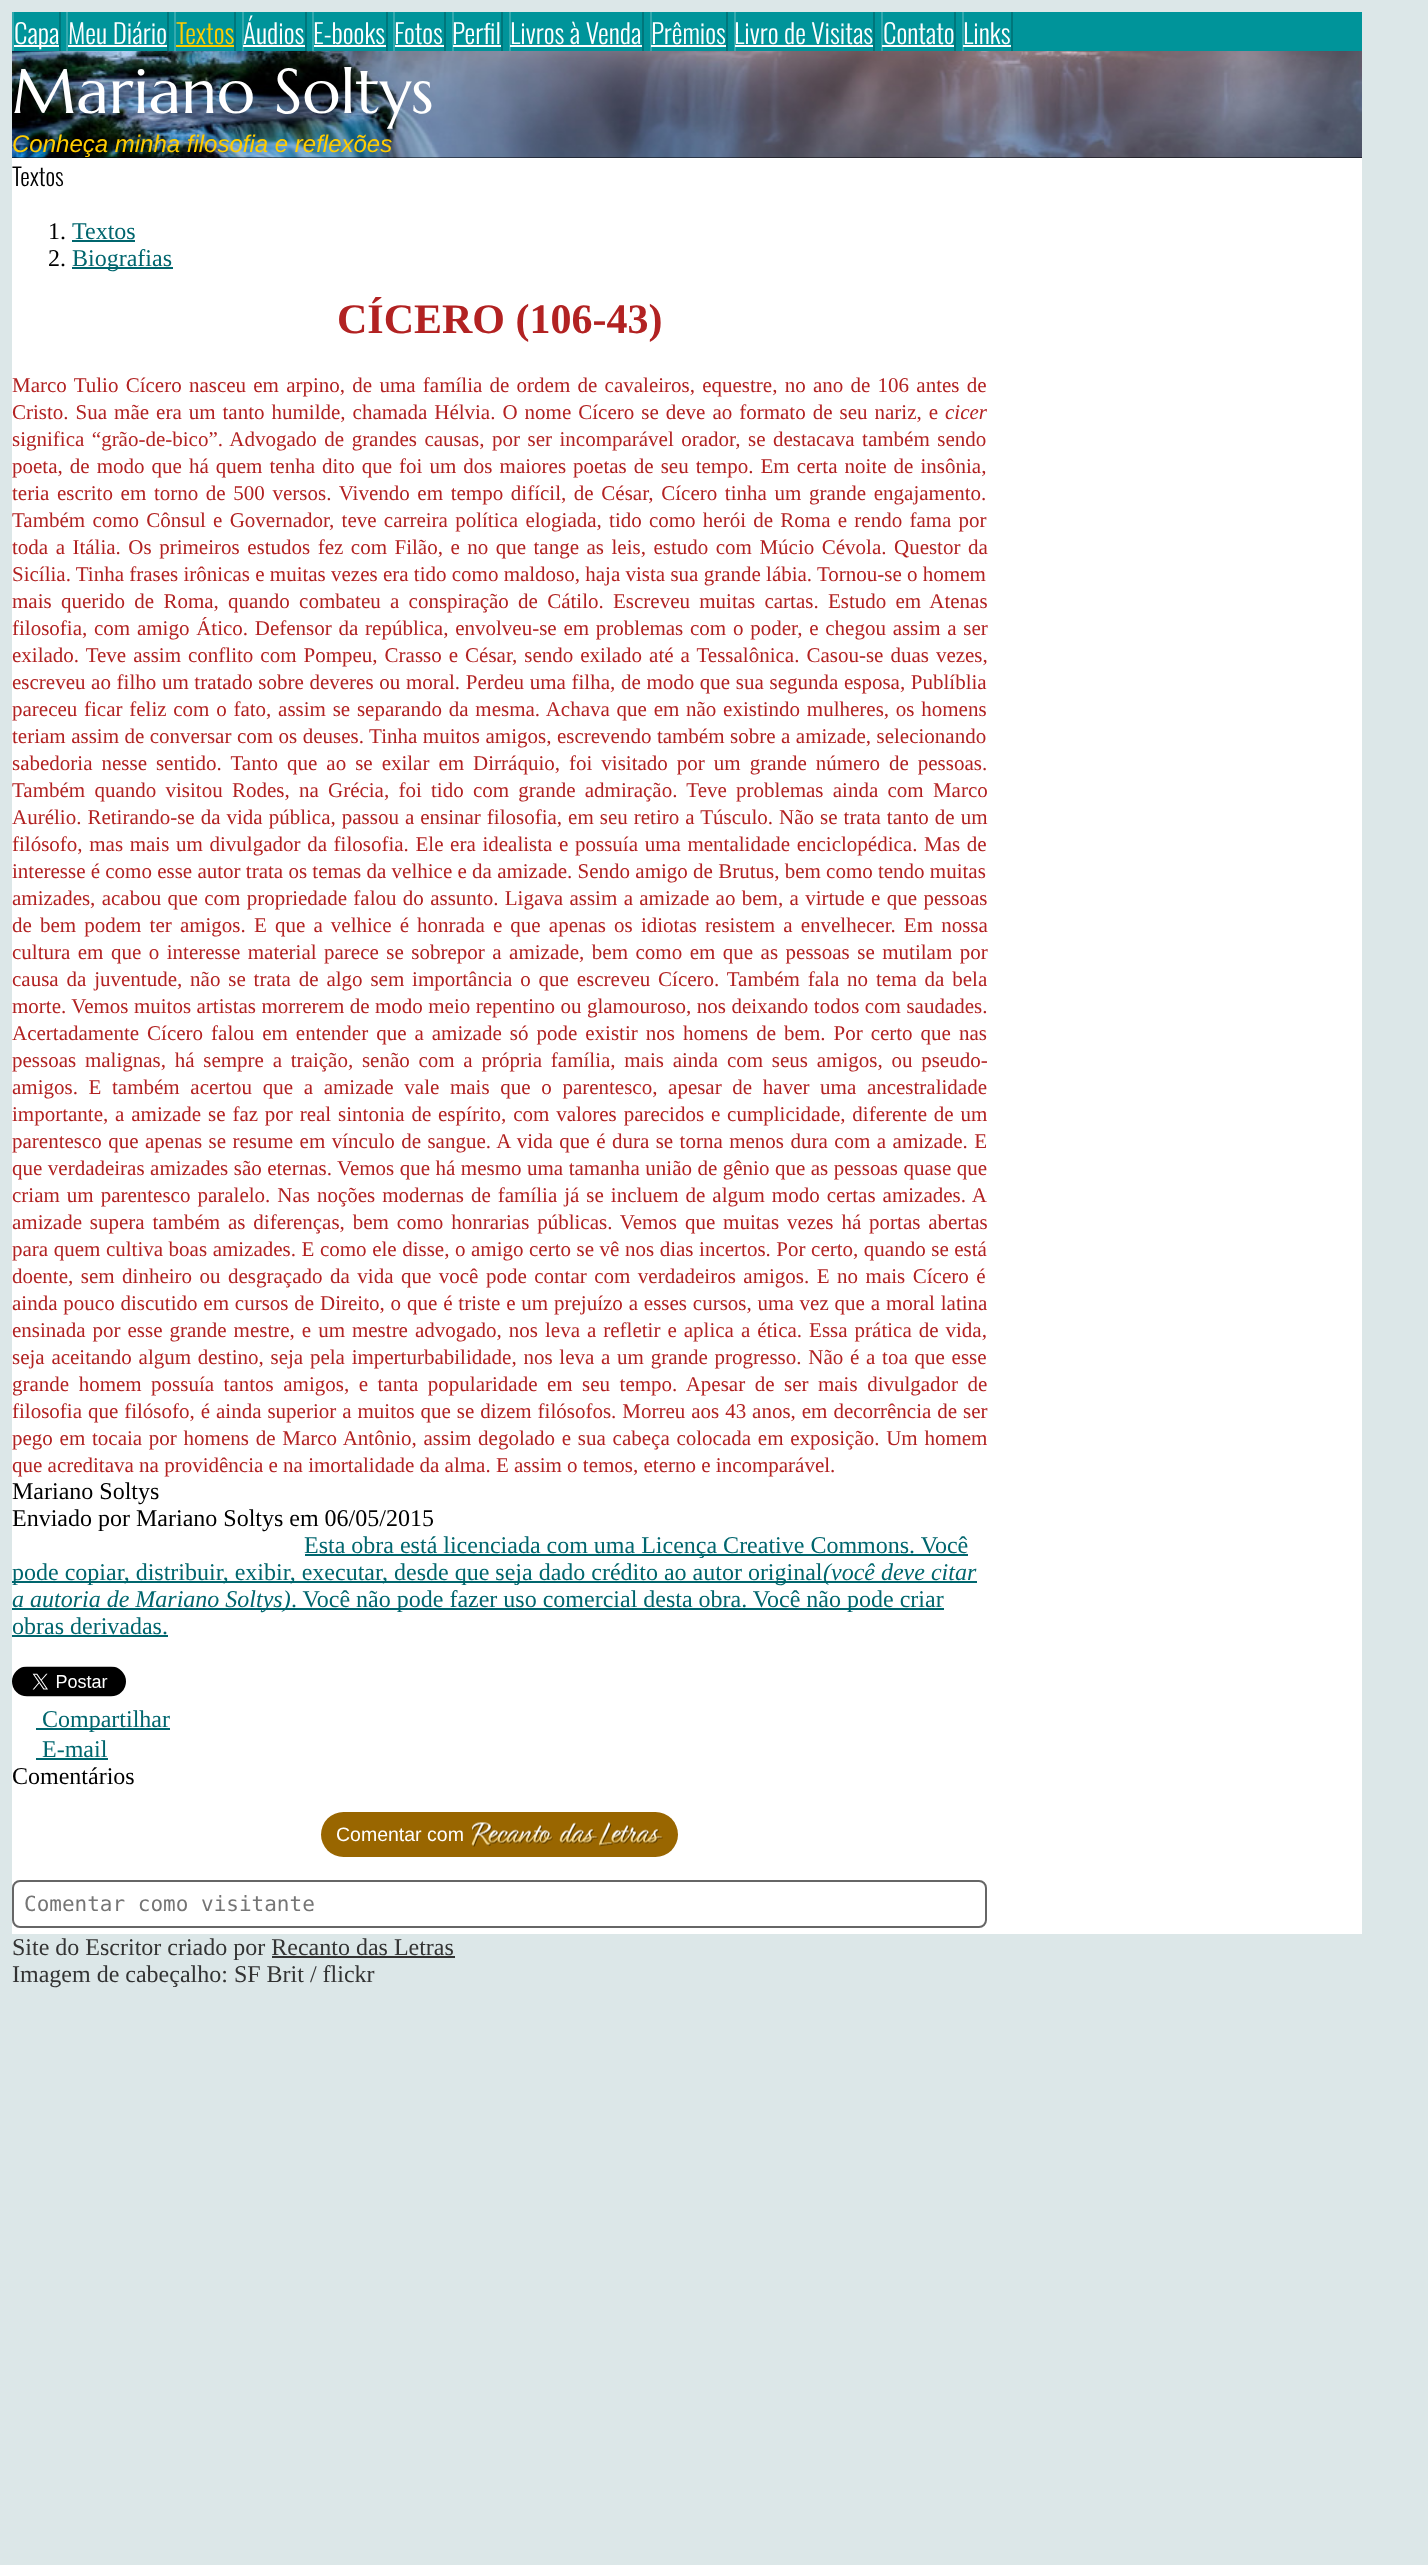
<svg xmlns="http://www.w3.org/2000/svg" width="1428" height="2565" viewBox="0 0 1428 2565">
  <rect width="100%" height="100%" fill="#dce7e8"/>
  <path d="M14 12h1348v39H14z" fill="#00949a"/>
  <path d="M59 12h2v39H59z" fill="#00767b"/>
  <path d="M12 12h2v39H12z" fill="#33a9ae"/>
  <path d="M14 45h45v2H14z" fill="#fff"/>
  <path d="M167 12h2v39H167z" fill="#00767b"/>
  <path d="M66 12h2v39H66z" fill="#33a9ae"/>
  <path d="M68 45h99v2H68z" fill="#fff"/>
  <path d="M234 12h2v39H234z" fill="#00767b"/>
  <path d="M174 12h2v39H174z" fill="#33a9ae"/>
  <path d="M176 45h58v2H176z" fill="#fc0"/>
  <path d="M305 12h2v39H305z" fill="#00767b"/>
  <path d="M242 12h2v39H242z" fill="#33a9ae"/>
  <path d="M243 45h62v2H243z" fill="#fff"/>
  <path d="M386 12h2v39H386z" fill="#00767b"/>
  <path d="M312 12h2v39H312z" fill="#33a9ae"/>
  <path d="M314 45h72v2H314z" fill="#fff"/>
  <path d="M444 12h2v39H444z" fill="#00767b"/>
  <path d="M393 12h2v39H393z" fill="#33a9ae"/>
  <path d="M395 45h49v2H395z" fill="#fff"/>
  <path d="M501 12h2v39H501z" fill="#00767b"/>
  <path d="M452 12h2v39H452z" fill="#33a9ae"/>
  <path d="M453 45h48v2H453z" fill="#fff"/>
  <path d="M642 12h2v39H642z" fill="#00767b"/>
  <path d="M509 12h2v39H509z" fill="#33a9ae"/>
  <path d="M510 45h132v2H510z" fill="#fff"/>
  <path d="M726 12h2v39H726z" fill="#00767b"/>
  <path d="M650 12h2v39H650z" fill="#33a9ae"/>
  <path d="M651 45h75v2H651z" fill="#fff"/>
  <path d="M873 12h2v39H873z" fill="#00767b"/>
  <path d="M734 12h2v39H734z" fill="#33a9ae"/>
  <path d="M735 45h138v2H735z" fill="#fff"/>
  <path d="M954 12h2v39H954z" fill="#00767b"/>
  <path d="M881 12h2v39H881z" fill="#33a9ae"/>
  <path d="M882 45h72v2H882z" fill="#fff"/>
  <path d="M1011 12h2v39H1011z" fill="#00767b"/>
  <path d="M962 12h2v39H962z" fill="#33a9ae"/>
  <path d="M963 45h48v2H963z" fill="#fff"/>
  <path d="M12 157h1350v1H12z" fill="#000"/>
  <image x="12" y="51" width="1350" height="107" href="img/1.png"/>
  <path d="M12 158h1350v1776H12z" fill="#fff"/>
  <path d="M72 240h63v2H72z" fill="#00666e"/>
  <path d="M72 267h101v2H72z" fill="#00666e"/>
  <path d="M305 1554h663v2H305z" fill="#00666e"/>
  <path d="M12 1581h810v2H12z" fill="#00666e"/>
  <path d="M822 1581h155v2H822z" fill="#00666e"/>
  <path d="M12 1608h932v2H12z" fill="#00666e"/>
  <path d="M12 1635h156v2H12z" fill="#00666e"/>
  <image x="12" y="1666" width="114" height="31" href="img/2.png"/>
  <path d="M36 1728h134v2H36z" fill="#00666e"/>
  <path d="M36 1758h72v2H36z" fill="#00666e"/>
  <rect x="321" y="1812" width="357" height="45" rx="22.5" fill="#960"/>
  <image x="471" y="1822" width="192" height="25" href="img/3.png"/>
  <rect x="13" y="1881" width="973" height="46" rx="7" fill="none" stroke="#666" stroke-width="2"/>
  <path d="M272 1956h183v2H272z" fill="#333"/>
  <g font-family="Oswald" font-size="27" font-weight="300" fill="#fff">
    <text x="14" y="44">Capa</text>
    <text x="68" y="44">Meu Diário</text>
  </g>
  <text x="176" y="44" font-family="Oswald" font-size="27" font-weight="300" fill="#fc0">Textos</text>
  <g font-family="Oswald" font-size="27" font-weight="300" fill="#fff">
    <text x="243" y="44">Áudios</text>
    <text x="313" y="44">E-books</text>
    <text x="394" y="44">Fotos</text>
    <text x="452" y="44">Perfil</text>
    <text x="510" y="44">Livros à Venda</text>
    <text x="651" y="44">Prêmios</text>
    <text x="734" y="44">Livro de Visitas</text>
    <text x="883" y="44">Contato</text>
    <text x="963" y="44">Links</text>
  </g>
  <text x="12" y="113" font-family="Marcellus" font-size="63" fill="#fff">Mariano Soltys</text>
  <text x="12" y="152" font-family="Arimo" font-size="24" font-style="italic" fill="#fc0">Conheça minha filosofia e reflexões</text>
  <text x="12" y="186" font-family="Oswald" font-size="24" font-weight="300" fill="#000">Textos</text>
  <text x="48" y="239" font-family="Liberation Serif" font-size="24" fill="#000">1.</text>
  <text x="72" y="239" font-family="Liberation Serif" font-size="24" fill="#00666e">Textos</text>
  <text x="48" y="266" font-family="Liberation Serif" font-size="24" fill="#000">2.</text>
  <text x="72" y="266" font-family="Liberation Serif" font-size="24" fill="#00666e">Biografias</text>
  <text x="337" y="333" font-family="Liberation Serif" font-size="42" font-weight="bold" fill="#b22222">CÍCERO (106-43)</text>
  <g font-family="Liberation Serif" font-size="21" fill="#b22222">
    <text x="12" y="392" word-spacing="2">Marco Tulio Cícero nasceu em arpino, de uma família de ordem de cavaleiros, equestre, no ano de 106 antes de</text>
    <text x="12" y="419" word-spacing="1.75">Cristo. Sua mãe era um tanto humilde, chamada Hélvia. O nome Cícero se deve ao formato de seu nariz, e</text>
  </g>
  <text x="945" y="419" font-family="Liberation Serif" font-size="21" font-style="italic" fill="#b22222">cicer</text>
  <g font-family="Liberation Serif" font-size="21" fill="#b22222">
    <text x="12" y="446" word-spacing="2.25">significa “grão-de-bico”. Advogado de grandes causas, por ser incomparável orador, se destacava também sendo</text>
    <text x="12" y="473" word-spacing="1.8">poeta, de modo que há quem tenha dito que foi um dos maiores poetas de seu tempo. Em certa noite de insônia,</text>
    <text x="12" y="500" word-spacing="2.4">teria escrito em torno de 500 versos. Vivendo em tempo difícil, de César, Cícero tinha um grande engajamento.</text>
    <text x="12" y="527" word-spacing="2">Também como Cônsul e Governador, teve carreira política elogiada, tido como herói de Roma e rendo fama por</text>
    <text x="12" y="554" word-spacing="2.25">toda a Itália. Os primeiros estudos fez com Filão, e no que tange as leis, estudo com Múcio Cévola. Questor da</text>
    <text x="12" y="581">Sicília. Tinha frases irônicas e muitas vezes era tido como maldoso, haja vista sua grande lábia. Tornou-se o homem</text>
    <text x="12" y="608" word-spacing="4">mais querido de Roma, quando combateu a conspiração de Cátilo. Escreveu muitas cartas. Estudo em Atenas</text>
    <text x="12" y="635" word-spacing="1.5">filosofia, com amigo Ático. Defensor da república, envolveu-se em problemas com o poder, e chegou assim a ser</text>
    <text x="12" y="662" word-spacing="1.75">exilado. Teve assim conflito com Pompeu, Crasso e César, sendo exilado até a Tessalônica. Casou-se duas vezes,</text>
    <text x="12" y="689" word-spacing="0.4">escreveu ao filho um tratado sobre deveres ou moral. Perdeu uma filha, de modo que sua segunda esposa, Publíblia</text>
    <text x="12" y="716" word-spacing="1.5">pareceu ficar feliz com o fato, assim se separando da mesma. Achava que em não existindo mulheres, os homens</text>
    <text x="12" y="743" word-spacing="0.25">teriam assim de conversar com os deuses. Tinha muitos amigos, escrevendo também sobre a amizade, selecionando</text>
    <text x="12" y="770" word-spacing="3.75">sabedoria nesse sentido. Tanto que ao se exilar em Dirráquio, foi visitado por um grande número de pessoas.</text>
    <text x="12" y="797" word-spacing="4">Também quando visitou Rodes, na Grécia, foi tido com grande admiração. Teve problemas ainda com Marco</text>
    <text x="12" y="824" word-spacing="0.75">Aurélio. Retirando-se da vida pública, passou a ensinar filosofia, em seu retiro a Túsculo. Não se trata tanto de um</text>
    <text x="12" y="851" word-spacing="1.4">filósofo, mas mais um divulgador da filosofia. Ele era idealista e possuía uma mentalidade enciclopédica. Mas de</text>
    <text x="12" y="878">interesse é como esse autor trata os temas da velhice e da amizade. Sendo amigo de Brutus, bem como tendo muitas</text>
    <text x="12" y="905" word-spacing="1.1">amizades, acabou que com propriedade falou do assunto. Ligava assim a amizade ao bem, a virtude e que pessoas</text>
    <text x="12" y="932" word-spacing="2.9">de bem podem ter amigos. E que a velhice é honrada e que apenas os idiotas resistem a envelhecer. Em nossa</text>
    <text x="12" y="959" word-spacing="2.25">cultura em que o interesse material parece se sobrepor a amizade, bem como em que as pessoas se mutilam por</text>
    <text x="12" y="986" word-spacing="2.6">causa da juventude, não se trata de algo sem importância o que escreveu Cícero. Também fala no tema da bela</text>
    <text x="12" y="1013" word-spacing="0.2">morte. Vemos muitos artistas morrerem de modo meio repentino ou glamouroso, nos deixando todos com saudades.</text>
    <text x="12" y="1040" word-spacing="2.75">Acertadamente Cícero falou em entender que a amizade só pode existir nos homens de bem. Por certo que nas</text>
    <text x="12" y="1067" word-spacing="3.5">pessoas malignas, há sempre a traição, senão com a própria família, mais ainda com seus amigos, ou pseudo-</text>
    <text x="12" y="1094" word-spacing="5.4">amigos. E também acertou que a amizade vale mais que o parentesco, apesar de haver uma ancestralidade</text>
    <text x="12" y="1121" word-spacing="1.6">importante, a amizade se faz por real sintonia de espírito, com valores parecidos e cumplicidade, diferente de um</text>
    <text x="12" y="1148" word-spacing="1.2">parentesco que apenas se resume em vínculo de sangue. A vida que é dura se torna menos dura com a amizade. E</text>
    <text x="12" y="1175" word-spacing="0.25">que verdadeiras amizades são eternas. Vemos que há mesmo uma tamanha união de gênio que as pessoas quase que</text>
    <text x="12" y="1202" word-spacing="1.75">criam um parentesco paralelo. Nas noções modernas de família já se incluem de algum modo certas amizades. A</text>
    <text x="12" y="1229" word-spacing="2.6">amizade supera também as diferenças, bem como honrarias públicas. Vemos que muitas vezes há portas abertas</text>
    <text x="12" y="1256" word-spacing="0.3">para quem cultiva boas amizades. E como ele disse, o amigo certo se vê nos dias incertos. Por certo, quando se está</text>
    <text x="12" y="1283" word-spacing="2.25">doente, sem dinheiro ou desgraçado da vida que você pode contar com verdadeiros amigos. E no mais Cícero é</text>
    <text x="12" y="1310" word-spacing="0.6">ainda pouco discutido em cursos de Direito, o que é triste e um prejuízo a esses cursos, uma vez que a moral latina</text>
    <text x="12" y="1337" word-spacing="1.75">ensinada por esse grande mestre, e um mestre advogado, nos leva a refletir e aplica a ética. Essa prática de vida,</text>
    <text x="12" y="1364" word-spacing="1.5">seja aceitando algum destino, seja pela imperturbabilidade, nos leva a um grande progresso. Não é a toa que esse</text>
    <text x="12" y="1391" word-spacing="4.25">grande homem possuía tantos amigos, e tanta popularidade em seu tempo. Apesar de ser mais divulgador de</text>
    <text x="12" y="1418" word-spacing="0.7">filosofia que filósofo, é ainda superior a muitos que se dizem filósofos. Morreu aos 43 anos, em decorrência de ser</text>
    <text x="12" y="1445" word-spacing="1.5">pego em tocaia por homens de Marco Antônio, assim degolado e sua cabeça colocada em exposição. Um homem</text>
    <text x="12" y="1472">que acreditava na providência e na imortalidade da alma. E assim o temos, eterno e incomparável.</text>
  </g>
  <g font-family="Liberation Serif" font-size="24" fill="#000">
    <text x="12" y="1499">Mariano Soltys</text>
    <text x="12" y="1526">Enviado por Mariano Soltys em 06/05/2015</text>
  </g>
  <g font-family="Liberation Serif" font-size="24" fill="#00666e">
    <text x="304" y="1553">Esta obra está licenciada com uma Licença Creative Commons. Você</text>
    <text x="12" y="1580">pode copiar, distribuir, exibir, executar, desde que seja dado crédito ao autor original</text>
  </g>
  <g font-family="Liberation Serif" font-size="24" font-style="italic" fill="#00666e">
    <text x="823" y="1580">(você deve citar</text>
    <text x="12" y="1607">a autoria de Mariano Soltys)</text>
  </g>
  <g font-family="Liberation Serif" font-size="24" fill="#00666e">
    <text x="291" y="1607">. Você não pode fazer uso comercial desta obra. Você não pode criar</text>
    <text x="12" y="1634">obras derivadas.</text>
    <text x="42" y="1727">Compartilhar</text>
    <text x="42" y="1757">E-mail</text>
  </g>
  <text x="12" y="1784" font-family="Liberation Serif" font-size="24" fill="#000">Comentários</text>
  <text x="336" y="1841" font-family="Liberation Sans" font-size="19.5" fill="#fff">Comentar com</text>
  <text x="24" y="1911" font-family="DejaVu Sans Mono" font-size="21" fill="#757575">Comentar como visitante</text>
  <g font-family="Liberation Serif" font-size="24" fill="#333">
    <text x="12" y="1955">Site do Escritor criado por Recanto das Letras</text>
    <text x="12" y="1982">Imagem de cabeçalho: SF Brit / flickr</text>
  </g>
</svg>
